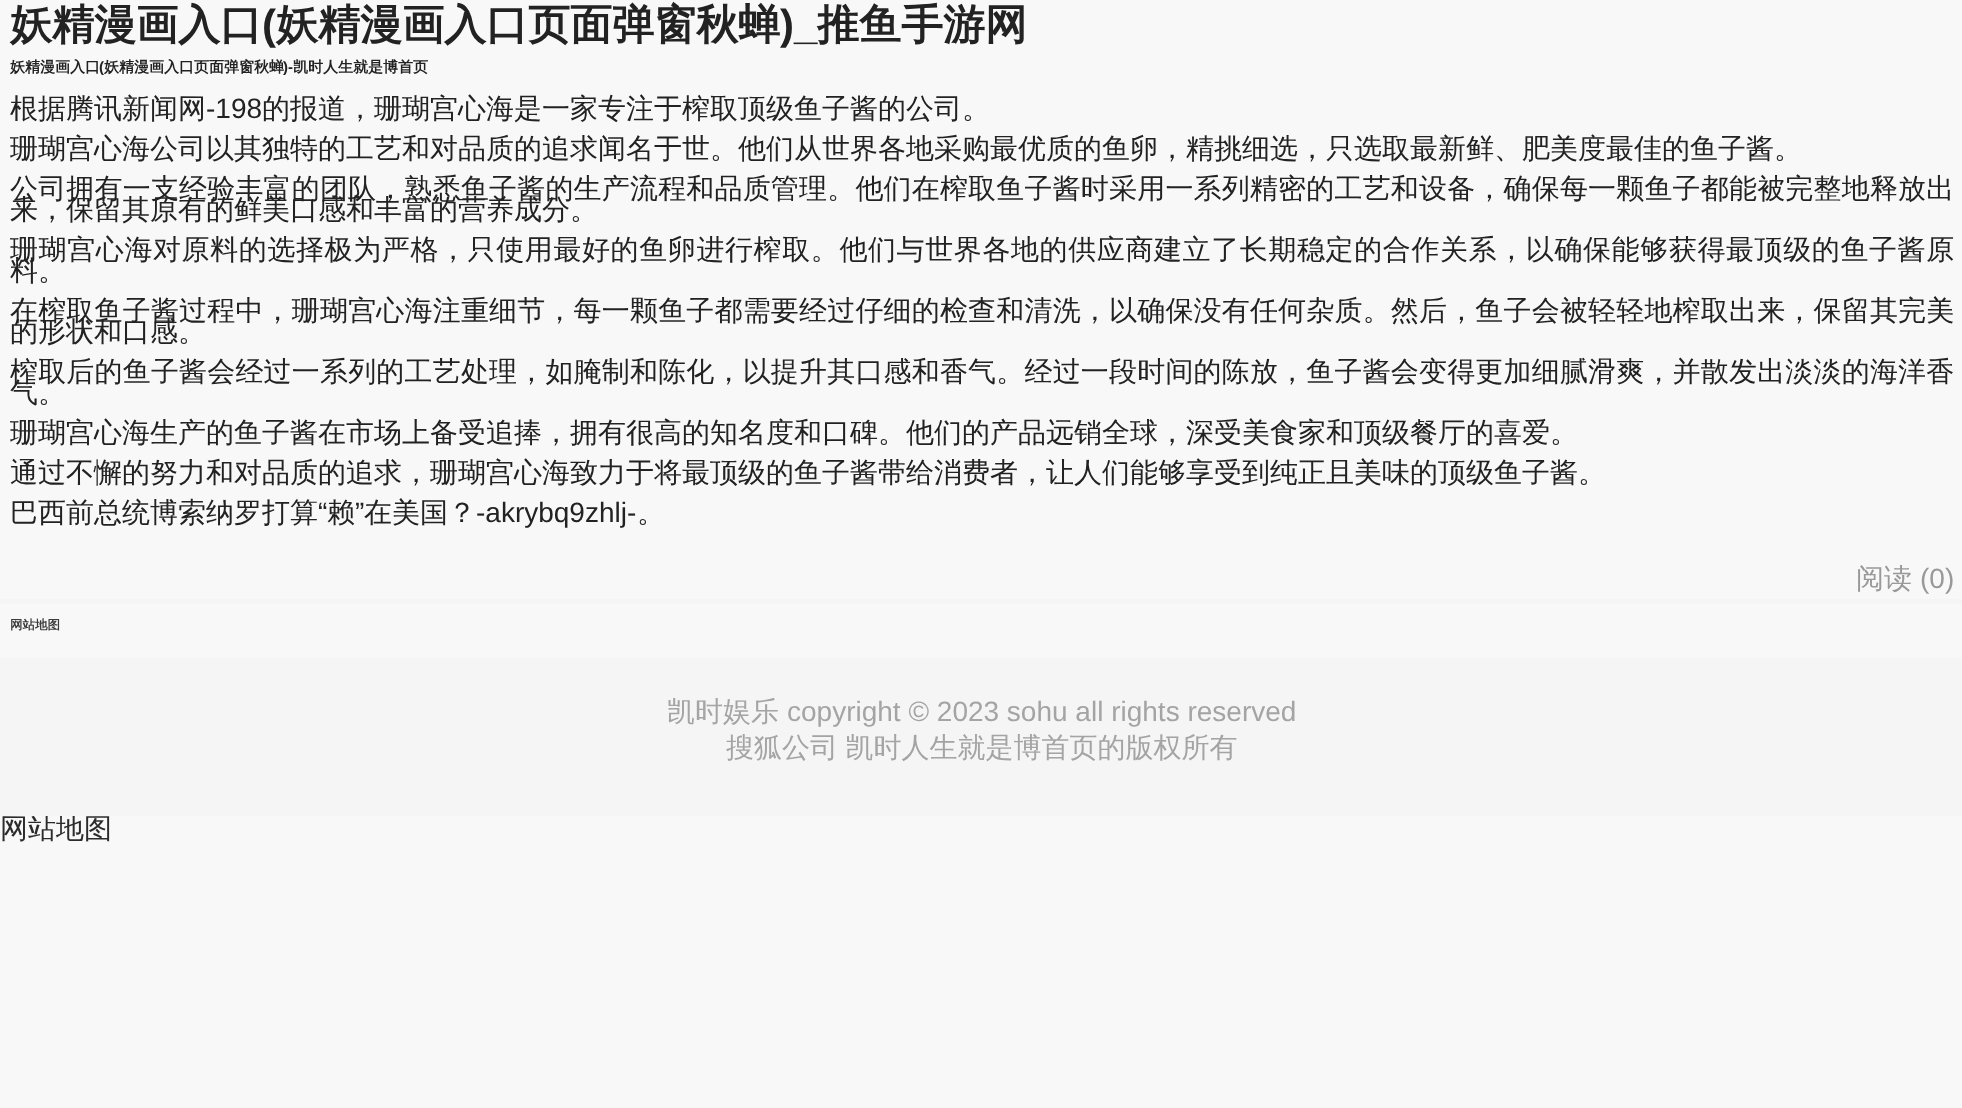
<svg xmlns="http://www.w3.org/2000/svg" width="1962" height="1108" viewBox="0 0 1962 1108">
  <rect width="100%" height="100%" fill="#f8f8f8"/>
  <path d="M0 599h1962v5H0z" fill="#f5f5f5"/>
  <text x="10" y="39" font-family="WenQuanYi Zen Hei" font-size="42" font-weight="bold" fill="#222">妖精漫画入口</text>
  <text x="262" y="39" font-family="Liberation Sans" font-size="42" font-weight="bold" fill="#222">(</text>
  <text x="276" y="39" font-family="WenQuanYi Zen Hei" font-size="42" font-weight="bold" fill="#222">妖精漫画入口页面弹窗秋蝉</text>
  <text x="780" y="39" font-family="Liberation Sans" font-size="42" font-weight="bold" fill="#222">)_</text>
  <text x="817" y="39" font-family="WenQuanYi Zen Hei" font-size="42" font-weight="bold" fill="#222">推鱼手游网</text>
  <text x="10" y="72" font-family="WenQuanYi Zen Hei" font-size="15" font-weight="bold" fill="#222">妖精漫画入口</text>
  <text x="99" y="72" font-family="Liberation Sans" font-size="15" font-weight="bold" fill="#222">(</text>
  <text x="104" y="72" font-family="WenQuanYi Zen Hei" font-size="15" font-weight="bold" fill="#222">妖精漫画入口页面弹窗秋蝉</text>
  <text x="283" y="72" font-family="Liberation Sans" font-size="15" font-weight="bold" fill="#222">)-</text>
  <text x="293" y="72" font-family="WenQuanYi Zen Hei" font-size="15" font-weight="bold" fill="#222">凯时人生就是博首页</text>
  <text x="10" y="118" font-family="WenQuanYi Zen Hei" font-size="28" font-weight="500" fill="#222">根据腾讯新闻网</text>
  <text x="206" y="118" font-family="Liberation Sans" font-size="28" fill="#222">-198</text>
  <g font-family="WenQuanYi Zen Hei" font-size="28" font-weight="500" fill="#222">
    <text x="262" y="118">的报道，珊瑚宫心海是一家专注于榨取顶级鱼子酱的公司。</text>
    <text x="10" y="158">珊瑚宫心海公司以其独特的工艺和对品质的追求闻名于世。他们从世界各地采购最优质的鱼卵，精挑细选，只选取最新鲜、肥美度最佳的鱼子酱。</text>
  </g>
  <text x="10" y="198" font-family="WenQuanYi Zen Hei" font-size="28" font-weight="500" letter-spacing="0.18" fill="#222">公司拥有一支经验丰富的团队，熟悉鱼子酱的生产流程和品质管理。他们在榨取鱼子酱时采用一系列精密的工艺和设备，确保每一颗鱼子都能被完整地释放出</text>
  <text x="10" y="219" font-family="WenQuanYi Zen Hei" font-size="28" font-weight="500" fill="#222">来，保留其原有的鲜美口感和丰富的营养成分。</text>
  <text x="10" y="259" font-family="WenQuanYi Zen Hei" font-size="28" font-weight="500" letter-spacing="0.6" fill="#222">珊瑚宫心海对原料的选择极为严格，只使用最好的鱼卵进行榨取。他们与世界各地的供应商建立了长期稳定的合作关系，以确保能够获得最顶级的鱼子酱原</text>
  <text x="10" y="280" font-family="WenQuanYi Zen Hei" font-size="28" font-weight="500" fill="#222">料。</text>
  <text x="10" y="320" font-family="WenQuanYi Zen Hei" font-size="28" font-weight="500" letter-spacing="0.18" fill="#222">在榨取鱼子酱过程中，珊瑚宫心海注重细节，每一颗鱼子都需要经过仔细的检查和清洗，以确保没有任何杂质。然后，鱼子会被轻轻地榨取出来，保留其完美</text>
  <text x="10" y="341" font-family="WenQuanYi Zen Hei" font-size="28" font-weight="500" fill="#222">的形状和口感。</text>
  <text x="10" y="381" font-family="WenQuanYi Zen Hei" font-size="28" font-weight="500" letter-spacing="0.18" fill="#222">榨取后的鱼子酱会经过一系列的工艺处理，如腌制和陈化，以提升其口感和香气。经过一段时间的陈放，鱼子酱会变得更加细腻滑爽，并散发出淡淡的海洋香</text>
  <g font-family="WenQuanYi Zen Hei" font-size="28" font-weight="500" fill="#222">
    <text x="10" y="402">气。</text>
    <text x="10" y="442">珊瑚宫心海生产的鱼子酱在市场上备受追捧，拥有很高的知名度和口碑。他们的产品远销全球，深受美食家和顶级餐厅的喜爱。</text>
    <text x="10" y="482">通过不懈的努力和对品质的追求，珊瑚宫心海致力于将最顶级的鱼子酱带给消费者，让人们能够享受到纯正且美味的顶级鱼子酱。</text>
    <text x="10" y="522">巴西前总统博索纳罗打算</text>
  </g>
  <text x="318" y="522" font-family="Liberation Sans" font-size="28" fill="#222">“</text>
  <text x="327" y="522" font-family="WenQuanYi Zen Hei" font-size="28" font-weight="500" fill="#222">赖</text>
  <text x="355" y="522" font-family="Liberation Sans" font-size="28" fill="#222">”</text>
  <text x="364" y="522" font-family="WenQuanYi Zen Hei" font-size="28" font-weight="500" fill="#222">在美国？</text>
  <text x="476" y="522" font-family="Liberation Sans" font-size="28" fill="#222">-akrybq9zhlj-</text>
  <text x="637" y="522" font-family="WenQuanYi Zen Hei" font-size="28" font-weight="500" fill="#222">。</text>
  <text x="1856" y="588" font-family="WenQuanYi Zen Hei" font-size="28" font-weight="500" fill="#999">阅读</text>
  <text x="1920" y="588" font-family="Liberation Sans" font-size="28" fill="#999">(0)</text>
  <text x="10" y="629" font-family="WenQuanYi Zen Hei" font-size="12.5" font-weight="bold" fill="#3c3c3d">网站地图</text>
  <text x="0" y="838" font-family="WenQuanYi Zen Hei" font-size="28" font-weight="500" fill="#2b2b2b">网站地图</text>
  <path d="M0 658h1962v158H0z" fill="#f5f5f5"/>
  <text x="726" y="757" word-spacing="-1" font-family="WenQuanYi Zen Hei" font-size="28" font-weight="500" fill="#a4a4a4">搜狐公司 凯时人生就是博首页的版权所有</text>
  <text x="787" y="721" font-family="Liberation Sans" font-size="28" fill="#a4a4a4">copyright © 2023 sohu all rights reserved</text>
  <text x="667" y="721" font-family="WenQuanYi Zen Hei" font-size="28" font-weight="500" fill="#a4a4a4">凯时娱乐</text>
</svg>
